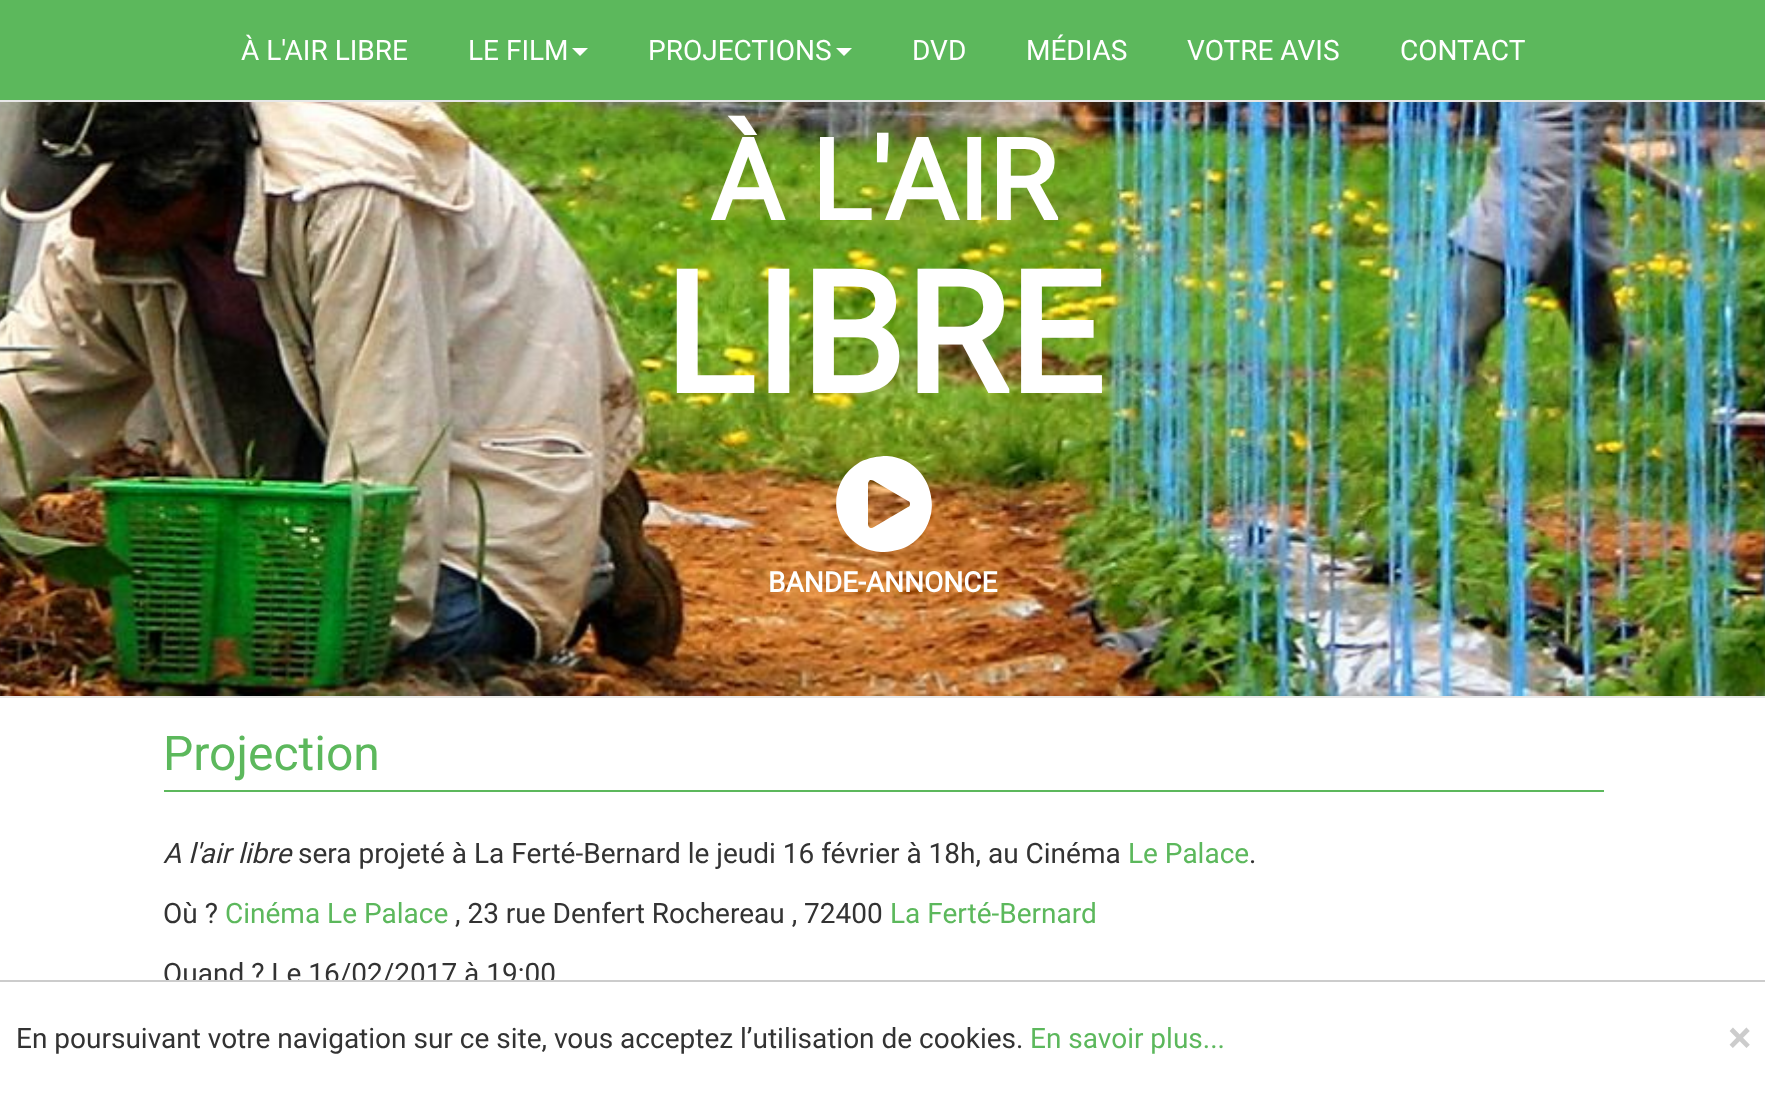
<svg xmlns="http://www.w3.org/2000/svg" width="1765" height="1094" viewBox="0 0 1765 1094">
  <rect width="100%" height="100%" fill="#fff"/>
  <path d="M0 0h1765v100H0z" fill="#5cb85c"/>
  <path d="M0 100h1765v2H0z" fill="#e7e7e7"/>
  <path d="M572 48H588L580 56Z" fill="#fff"/>
  <path d="M836 48H852L844 56Z" fill="#fff"/>
  <image x="0" y="102" width="1765" height="594" href="img/1.png"/>
  <path d="M0 696h1765v2H0z" fill="#e7e7e7"/>
  <path d="M860 462C868 458 878 456 887 456C934 459 949 522 908 546C900 550 890 552 881 552C834 549 819 486 860 462ZM908 507C909 507 910 506 910 504C910 502 909 501 908 501L874 481C873 480 871 480 870 480C869 481 868 482 868 484V524C868 526 869 527 870 528H872L874 527Z" fill="#fff"/>
  <path d="M164 790h1440v2H164z" fill="#5cb85c"/>
  <g font-family="Roboto" font-size="28" fill="#fff">
    <text x="241" y="60">À L'AIR LIBRE</text>
    <text x="468" y="60">LE FILM</text>
    <text x="648" y="60">PROJECTIONS</text>
    <text x="912" y="60">DVD</text>
    <text x="1026" y="60">MÉDIAS</text>
    <text x="1187" y="60">VOTRE AVIS</text>
    <text x="1400" y="60">CONTACT</text>
  </g>
  <text x="710" y="220" font-family="Roboto" font-size="112" font-weight="bold" fill="#fff">À L'AIR</text>
  <text x="663" y="393" font-family="Roboto" font-size="168" font-weight="bold" fill="#fff">LIBRE</text>
  <text x="768" y="592" font-family="Roboto" font-size="28" font-weight="bold" fill="#fff">BANDE-ANNONCE</text>
  <text x="163" y="770" font-family="Roboto" font-size="48" fill="#5cb85c">Projection</text>
  <text x="163" y="863" font-family="Roboto" font-size="28" font-style="italic" fill="#333">A l'air libre</text>
  <text x="298" y="863" font-family="Roboto" font-size="28" fill="#333">sera projeté à La Ferté-Bernard le jeudi 16 février à 18h, au Cinéma</text>
  <text x="1128" y="863" font-family="Roboto" font-size="28" fill="#5cb85c">Le Palace</text>
  <g font-family="Roboto" font-size="28" fill="#333">
    <text x="1249" y="863">.</text>
    <text x="163" y="923">Où ?</text>
  </g>
  <text x="225" y="923" font-family="Roboto" font-size="28" fill="#5cb85c">Cinéma Le Palace</text>
  <text x="455" y="923" font-family="Roboto" font-size="28" fill="#333">, 23 rue Denfert Rochereau , 72400</text>
  <text x="890" y="923" font-family="Roboto" font-size="28" fill="#5cb85c">La Ferté-Bernard</text>
  <text x="163" y="983" font-family="Roboto" font-size="28" fill="#333">Quand ? Le 16/02/2017 à 19:00</text>
  <path d="M168 982h384v5H168z" fill="#fff"/>
  <path d="M0 980h1765v2H0z" fill="#ccc"/>
  <text x="16" y="1048" font-family="Roboto" font-size="28" fill="#333">En poursuivant votre navigation sur ce site, vous acceptez l’utilisation de cookies.</text>
  <text x="1030" y="1048" font-family="Roboto" font-size="28" fill="#5cb85c">En savoir plus...</text>
  <text x="1728" y="1052" font-family="Roboto" font-size="42" font-weight="bold" fill="#ccc">×</text>
</svg>
